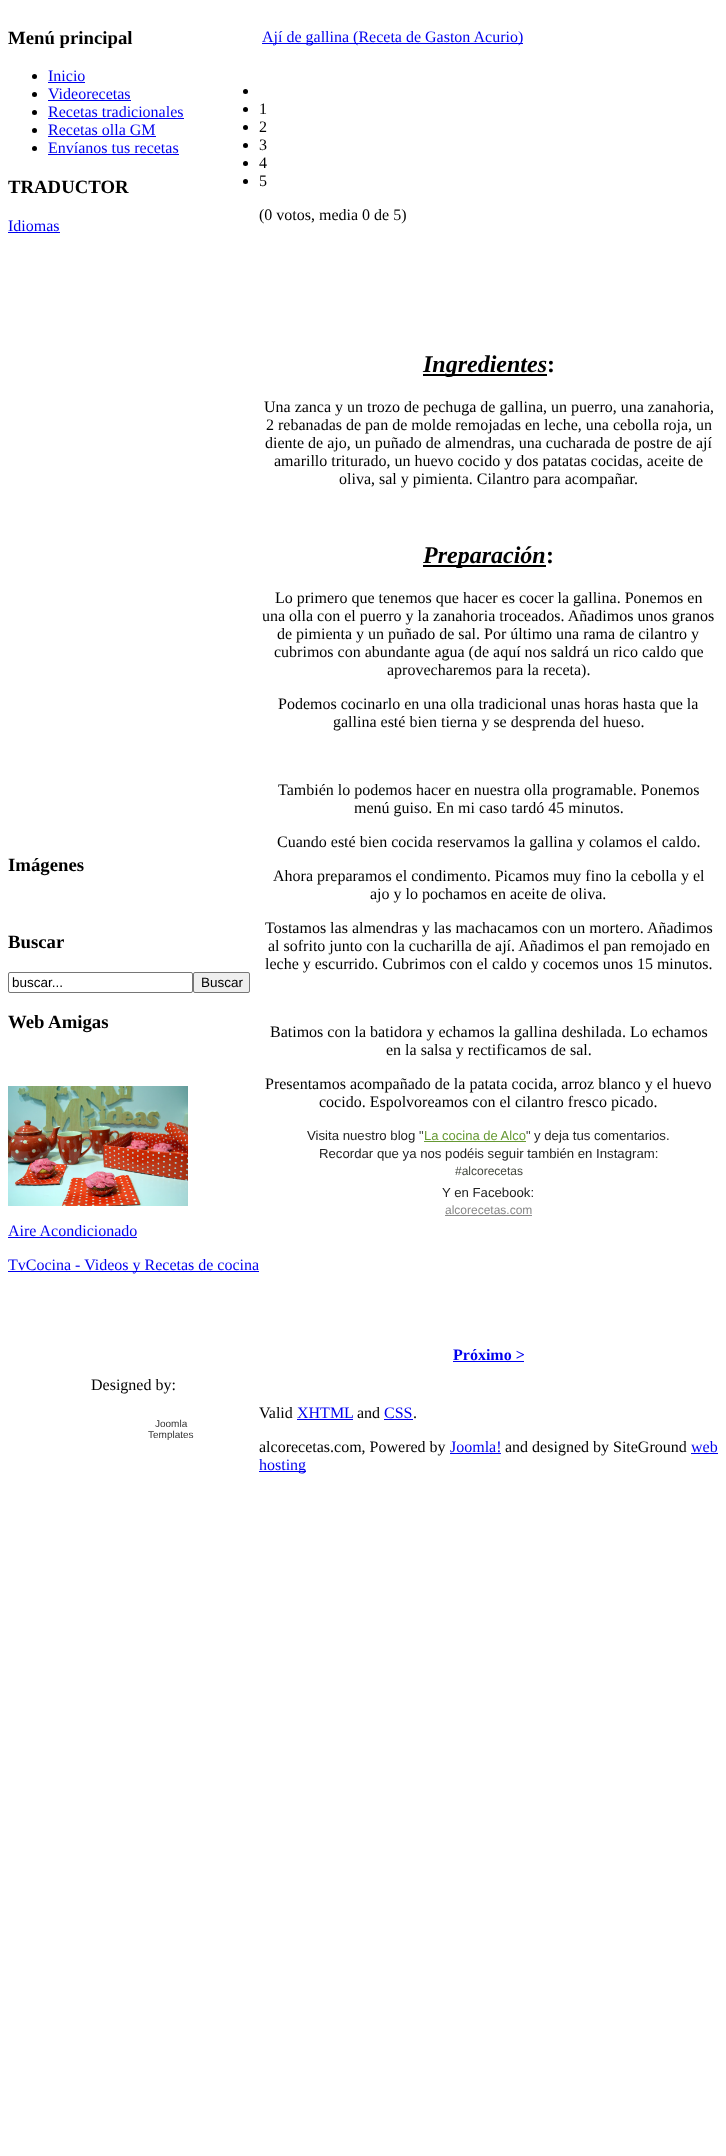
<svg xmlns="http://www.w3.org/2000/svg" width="726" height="2156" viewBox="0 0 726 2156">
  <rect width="100%" height="100%" fill="#fff"/>
  <circle cx="34.5" cy="76.5" r="2.5" fill="#000"/>
  <path d="M48 82h37v1H48z" fill="#00e"/>
  <circle cx="34.5" cy="94.5" r="2.5" fill="#000"/>
  <path d="M48 100h83v1H48z" fill="#00e"/>
  <circle cx="34.5" cy="112.5" r="2.5" fill="#000"/>
  <path d="M48 118h136v1H48z" fill="#00e"/>
  <circle cx="34.5" cy="130.5" r="2.5" fill="#000"/>
  <path d="M48 136h108v1H48z" fill="#00e"/>
  <circle cx="34.5" cy="148.5" r="2.5" fill="#000"/>
  <path d="M48 154h131v1H48z" fill="#00e"/>
  <path d="M8 232h52v1H8z" fill="#00e"/>
  <rect x="8.5" y="972.5" width="184" height="20" rx="1.5" fill="none" stroke="#767676"/>
  <rect x="193.5" y="972.5" width="56" height="20" rx="1.5" fill="#efefef" stroke="#767676"/>
  <image x="8" y="1086" width="180" height="120" href="img/1.png"/>
  <path d="M8 1237h129v1H8z" fill="#00e"/>
  <path d="M8 1271h251v1H8z" fill="#00e"/>
  <path d="M262 43h261v1H262z" fill="#00e"/>
  <circle cx="245.5" cy="91.5" r="2.5" fill="#000"/>
  <circle cx="245.5" cy="109.5" r="2.5" fill="#000"/>
  <circle cx="245.5" cy="127.5" r="2.5" fill="#000"/>
  <circle cx="245.5" cy="145.5" r="2.5" fill="#000"/>
  <circle cx="245.5" cy="163.5" r="2.5" fill="#000"/>
  <circle cx="245.5" cy="181.5" r="2.5" fill="#000"/>
  <path d="M423 374h124v2H423z" fill="#000"/>
  <path d="M423 565h123v2H423z" fill="#000"/>
  <path d="M424 1141h102v1H424z" fill="#693"/>
  <path d="M445 1215h87v1H445z" fill="#888"/>
  <path d="M453 1361h71v1H453z" fill="#00e"/>
  <path d="M297 1419h56v1H297z" fill="#00e"/>
  <path d="M384 1419h29v1H384z" fill="#00e"/>
  <path d="M450 1453h51v1H450z" fill="#00e"/>
  <path d="M691 1453h27v1H691z" fill="#00e"/>
  <path d="M259 1471h47v1H259z" fill="#00e"/>
  <text x="8" y="44" font-family="Liberation Serif" font-size="18.75" font-weight="bold" fill="#000">Menú principal</text>
  <g font-family="Liberation Serif" font-size="16" fill="#00e">
    <text x="48" y="81">Inicio</text>
    <text x="48" y="99">Videorecetas</text>
    <text x="48" y="117">Recetas tradicionales</text>
    <text x="48" y="135">Recetas olla GM</text>
    <text x="48" y="153">Envíanos tus recetas</text>
  </g>
  <text x="8" y="193" font-family="Liberation Serif" font-size="18.75" font-weight="bold" fill="#000">TRADUCTOR</text>
  <text x="8" y="231" font-family="Liberation Serif" font-size="16" fill="#00e">Idiomas</text>
  <g font-family="Liberation Serif" font-size="18.75" font-weight="bold" fill="#000">
    <text x="8" y="871">Imágenes</text>
    <text x="8" y="948">Buscar</text>
  </g>
  <g font-family="Liberation Sans" font-size="13.5" fill="#000">
    <text x="12" y="987">buscar...</text>
    <text x="201" y="987">Buscar</text>
  </g>
  <text x="8" y="1028" font-family="Liberation Serif" font-size="18.75" font-weight="bold" fill="#000">Web Amigas</text>
  <g font-family="Liberation Serif" font-size="16" fill="#00e">
    <text x="8" y="1236">Aire Acondicionado</text>
    <text x="8" y="1270">TvCocina - Videos y Recetas de cocina</text>
  </g>
  <text x="91" y="1390" font-family="Liberation Serif" font-size="16" fill="#000">Designed by:</text>
  <g font-family="Liberation Sans" font-size="10" fill="#333">
    <text x="155" y="1427">Joomla</text>
    <text x="148" y="1438">Templates</text>
  </g>
  <text x="262" y="42" font-family="Liberation Serif" font-size="16" fill="#00e">Ají de gallina (Receta de Gaston Acurio)</text>
  <g font-family="Liberation Serif" font-size="16" fill="#000">
    <text x="259" y="114">1</text>
    <text x="259" y="132">2</text>
    <text x="259" y="150">3</text>
    <text x="259" y="168">4</text>
    <text x="259" y="186">5</text>
    <text x="259" y="220">(0 votos, media 0 de 5)</text>
  </g>
  <text x="423" y="372" font-family="Liberation Serif" font-size="24" font-weight="bold" font-style="italic" fill="#000">Ingredientes</text>
  <text x="547" y="372" font-family="Liberation Serif" font-size="24" font-weight="bold" fill="#000">:</text>
  <g font-family="Liberation Serif" font-size="16" fill="#000">
    <text x="264" y="412">Una zanca y un trozo de pechuga de gallina, un puerro, una zanahoria,</text>
    <text x="266" y="430">2 rebanadas de pan de molde remojadas en leche, una cebolla roja, un</text>
    <text x="265" y="448">diente de ajo, un puñado de almendras, una cucharada de postre de ají</text>
    <text x="274" y="466">amarillo triturado, un huevo cocido y dos patatas cocidas, aceite de</text>
    <text x="339" y="484">oliva, sal y pimienta. Cilantro para acompañar.</text>
  </g>
  <text x="423" y="563" font-family="Liberation Serif" font-size="24" font-weight="bold" font-style="italic" fill="#000">Preparación</text>
  <text x="546" y="563" font-family="Liberation Serif" font-size="24" font-weight="bold" fill="#000">:</text>
  <g font-family="Liberation Serif" font-size="16" fill="#000">
    <text x="275" y="603">Lo primero que tenemos que hacer es cocer la gallina. Ponemos en</text>
    <text x="262" y="621">una olla con el puerro y la zanahoria troceados. Añadimos unos granos</text>
    <text x="277" y="639">de pimienta y un puñado de sal. Por último una rama de cilantro y</text>
    <text x="274" y="657">cubrimos con abundante agua (de aquí nos saldrá un rico caldo que</text>
    <text x="387" y="675">aprovecharemos para la receta).</text>
    <text x="278" y="709">Podemos cocinarlo en una olla tradicional unas horas hasta que la</text>
    <text x="333" y="727">gallina esté bien tierna y se desprenda del hueso.</text>
    <text x="278" y="795">También lo podemos hacer en nuestra olla programable. Ponemos</text>
    <text x="354" y="813">menú guiso. En mi caso tardó 45 minutos.</text>
    <text x="277" y="847">Cuando esté bien cocida reservamos la gallina y colamos el caldo.</text>
    <text x="273" y="881">Ahora preparamos el condimento. Picamos muy fino la cebolla y el</text>
    <text x="370" y="899">ajo y lo pochamos en aceite de oliva.</text>
    <text x="265" y="933">Tostamos las almendras y las machacamos con un mortero. Añadimos</text>
    <text x="268" y="951">al sofrito junto con la cucharilla de ají. Añadimos el pan remojado en</text>
    <text x="265" y="969">leche y escurrido. Cubrimos con el caldo y cocemos unos 15 minutos.</text>
    <text x="270" y="1037">Batimos con la batidora y echamos la gallina deshilada. Lo echamos</text>
    <text x="386" y="1055">en la salsa y rectificamos de sal.</text>
    <text x="265" y="1089">Presentamos acompañado de la patata cocida, arroz blanco y el huevo</text>
    <text x="319" y="1107">cocido. Espolvoreamos con el cilantro fresco picado.</text>
  </g>
  <text x="307" y="1140" font-family="Liberation Sans" font-size="13.2" fill="#222">Visita nuestro blog</text>
  <text x="419" y="1140" font-family="Liberation Sans" font-size="13" fill="#42463d">"</text>
  <text x="424" y="1140" font-family="Liberation Sans" font-size="13" fill="#693">La cocina de Alco</text>
  <text x="526" y="1140" font-family="Liberation Sans" font-size="13" fill="#42463d">"</text>
  <g font-family="Liberation Sans" font-size="13.2" fill="#222">
    <text x="534" y="1140">y deja tus comentarios.</text>
    <text x="319" y="1158">Recordar que ya nos podéis seguir también en Instagram:</text>
  </g>
  <text x="455" y="1175" font-family="Liberation Sans" font-size="12" fill="#42463d">#alcorecetas</text>
  <text x="442" y="1197" font-family="Liberation Sans" font-size="13.2" fill="#222">Y en Facebook:</text>
  <text x="445" y="1214" font-family="Liberation Sans" font-size="12" fill="#888">alcorecetas.com</text>
  <text x="453" y="1360" font-family="Liberation Serif" font-size="16" font-weight="bold" fill="#00e">Próximo &gt;</text>
  <text x="259" y="1418" font-family="Liberation Serif" font-size="16" fill="#000">Valid</text>
  <text x="297" y="1418" font-family="Liberation Serif" font-size="16" fill="#00e">XHTML</text>
  <text x="357" y="1418" font-family="Liberation Serif" font-size="16" fill="#000">and</text>
  <text x="384" y="1418" font-family="Liberation Serif" font-size="16" fill="#00e">CSS</text>
  <g font-family="Liberation Serif" font-size="16" fill="#000">
    <text x="413" y="1418">.</text>
    <text x="259" y="1452">alcorecetas.com, Powered by</text>
  </g>
  <text x="450" y="1452" font-family="Liberation Serif" font-size="16" fill="#00e">Joomla!</text>
  <text x="505" y="1452" font-family="Liberation Serif" font-size="16" fill="#000">and designed by SiteGround</text>
  <g font-family="Liberation Serif" font-size="16" fill="#00e">
    <text x="691" y="1452">web</text>
    <text x="259" y="1470">hosting</text>
  </g>
</svg>
